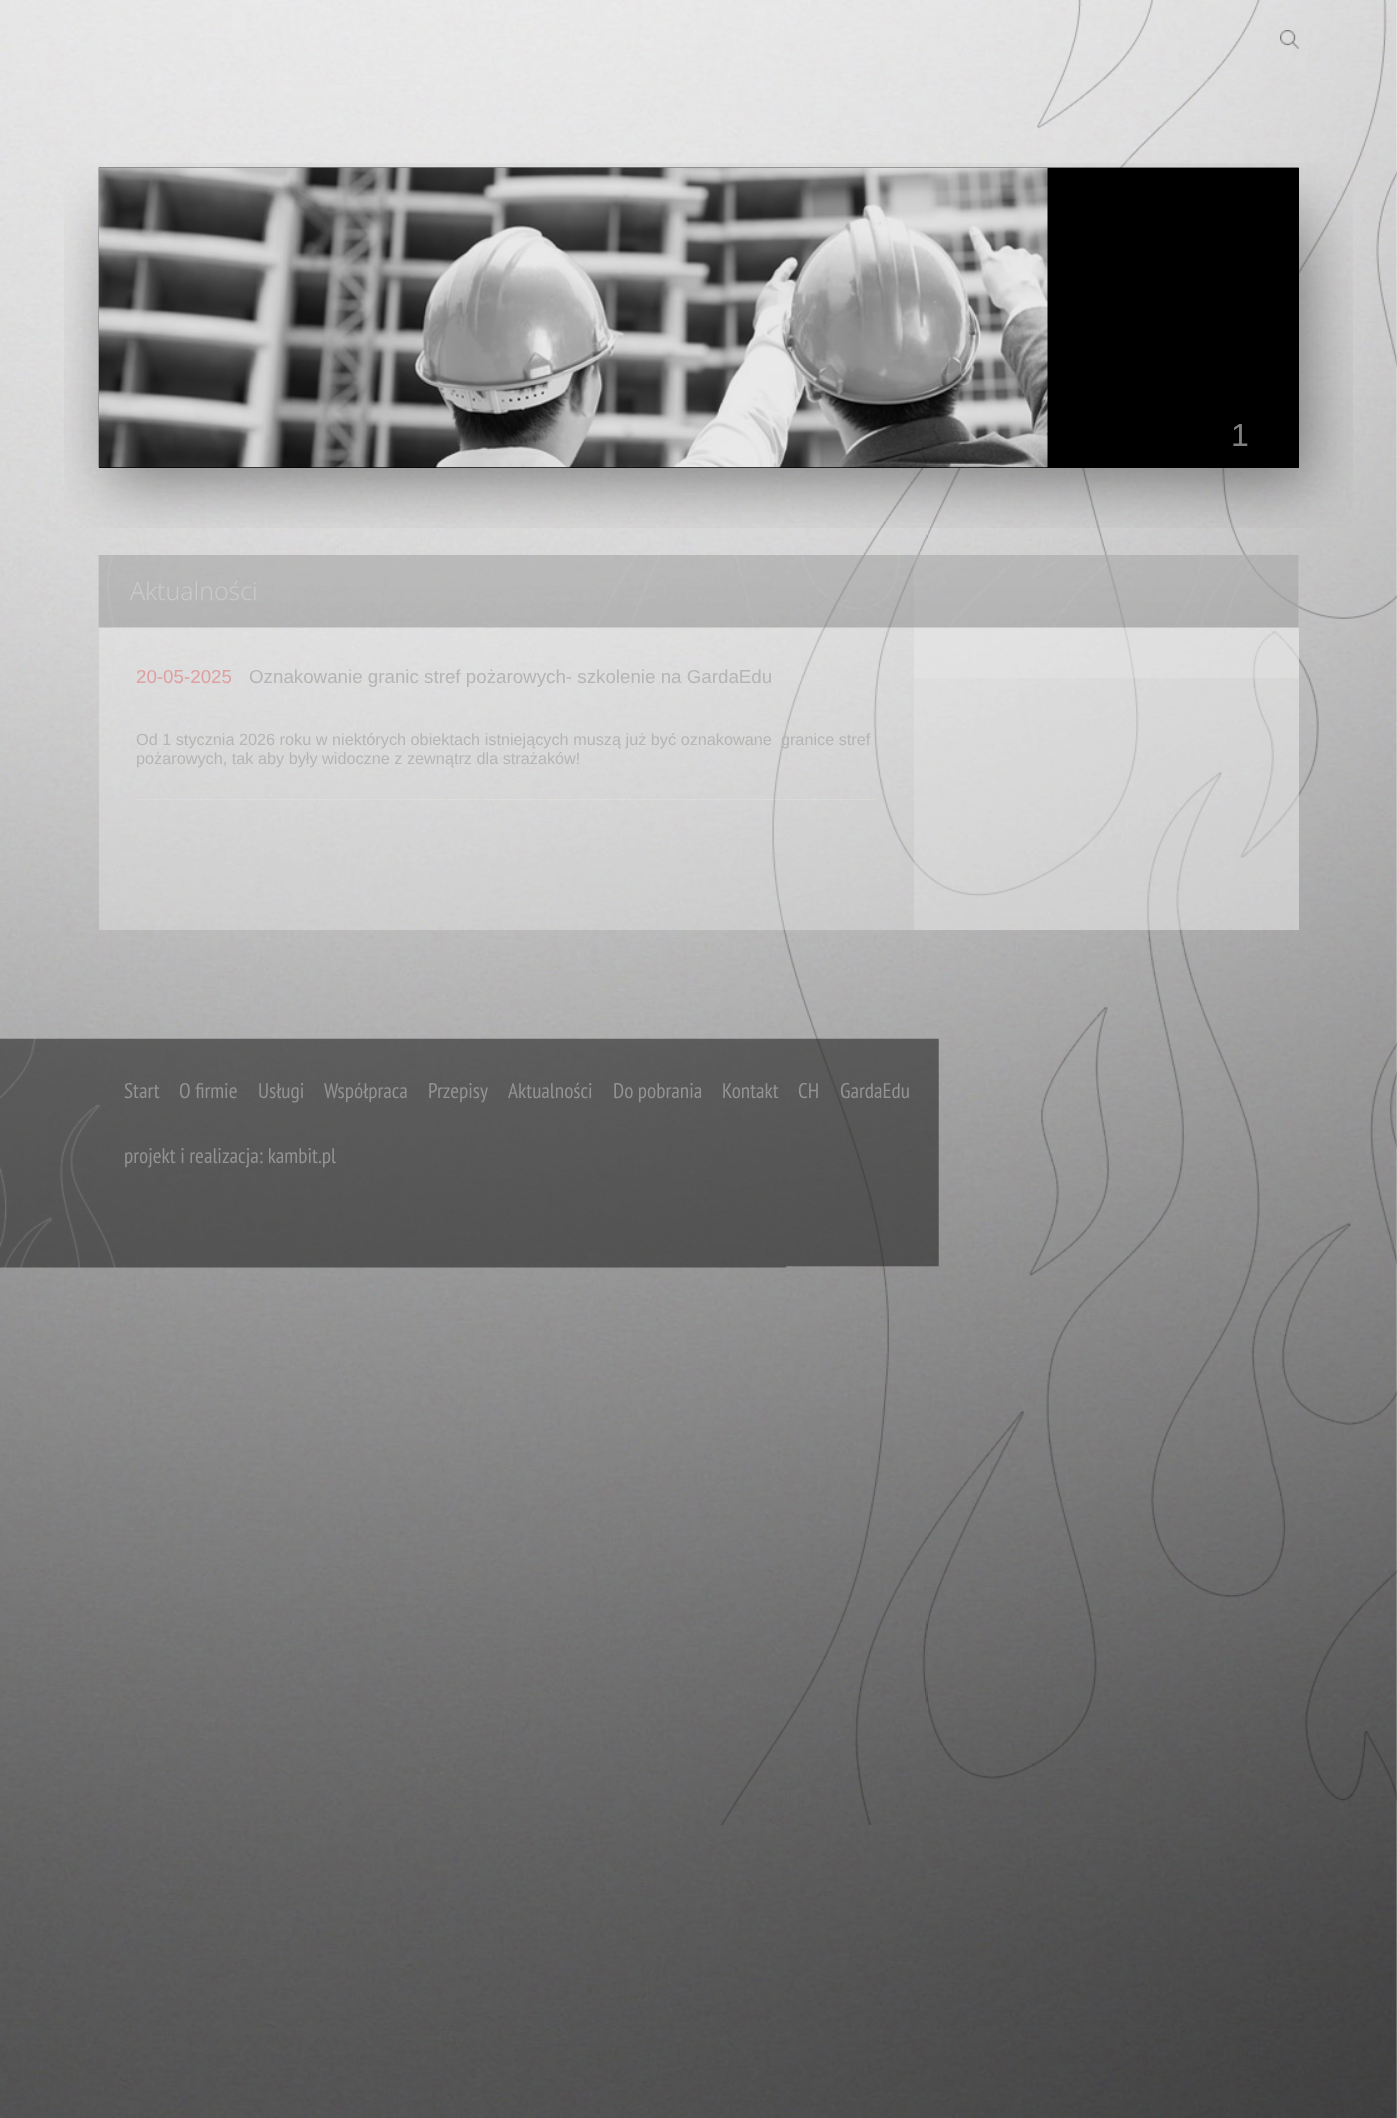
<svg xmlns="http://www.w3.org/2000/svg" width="1397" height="2118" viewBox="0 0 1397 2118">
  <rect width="100%" height="100%" fill="#fff"/>
  <image x="0" y="0" width="1397" height="2118" href="img/1.png"/>
  <image x="721" y="0" width="676" height="1825" href="img/2.png"/>
  <image x="1280" y="30" width="19" height="19" href="img/3.png"/>
  <image x="64" y="163" width="1289" height="365" href="img/4.png"/>
  <path d="M99 168h1200v300H99z" fill="#000"/>
  <image x="98" y="167" width="950" height="301" href="img/5.png"/>
  <path d="M99 555h1200v375H99z" fill="#ffffff45"/>
  <path d="M914 555h385v375H914z" fill="#ededed45"/>
  <image x="98" y="555" width="1201" height="73" href="img/6.png"/>
  <path d="M136 799h740v1H136z" fill="#eeeeee45"/>
  <path d="M914 628h385v50H914z" fill="#eeeeee45"/>
  <image x="0" y="1038" width="939" height="230" href="img/7.png"/>
  <text x="1231" y="446" font-family="Liberation Sans" font-size="32" fill="#808080">1</text>
  <text x="130" y="600" font-family="Open Sans" font-size="25" font-weight="300" fill="#cbcbcb">Aktualności</text>
  <text x="136" y="683" font-family="Liberation Sans" font-size="18.75" fill="#dea0a1">20-05-2025</text>
  <text x="249" y="683" font-family="Liberation Sans" font-size="18.75" fill="#b5b5b5">Oznakowanie granic stref pożarowych- szkolenie na GardaEdu</text>
  <g font-family="Liberation Sans" font-size="16.25" fill="#b5b5b5">
    <text x="136" y="745" xml:space="preserve">Od 1 stycznia 2026 roku w niektórych obiektach istniejących muszą już być oznakowane  granice stref</text>
    <text x="136" y="764">pożarowych, tak aby były widoczne z zewnątrz dla strażaków!</text>
  </g>
  <g font-family="PT Sans Narrow" font-size="21.25" fill="#939393">
    <text x="124" y="1098">Start</text>
    <text x="179" y="1098">O firmie</text>
    <text x="258" y="1098">Usługi</text>
    <text x="324" y="1098">Współpraca</text>
    <text x="428" y="1098">Przepisy</text>
    <text x="508" y="1098">Aktualności</text>
    <text x="613" y="1098">Do pobrania</text>
    <text x="722" y="1098">Kontakt</text>
    <text x="798" y="1098">CH</text>
    <text x="840" y="1098">GardaEdu</text>
    <text x="124" y="1163">projekt i realizacja: kambit.pl</text>
  </g>
</svg>
